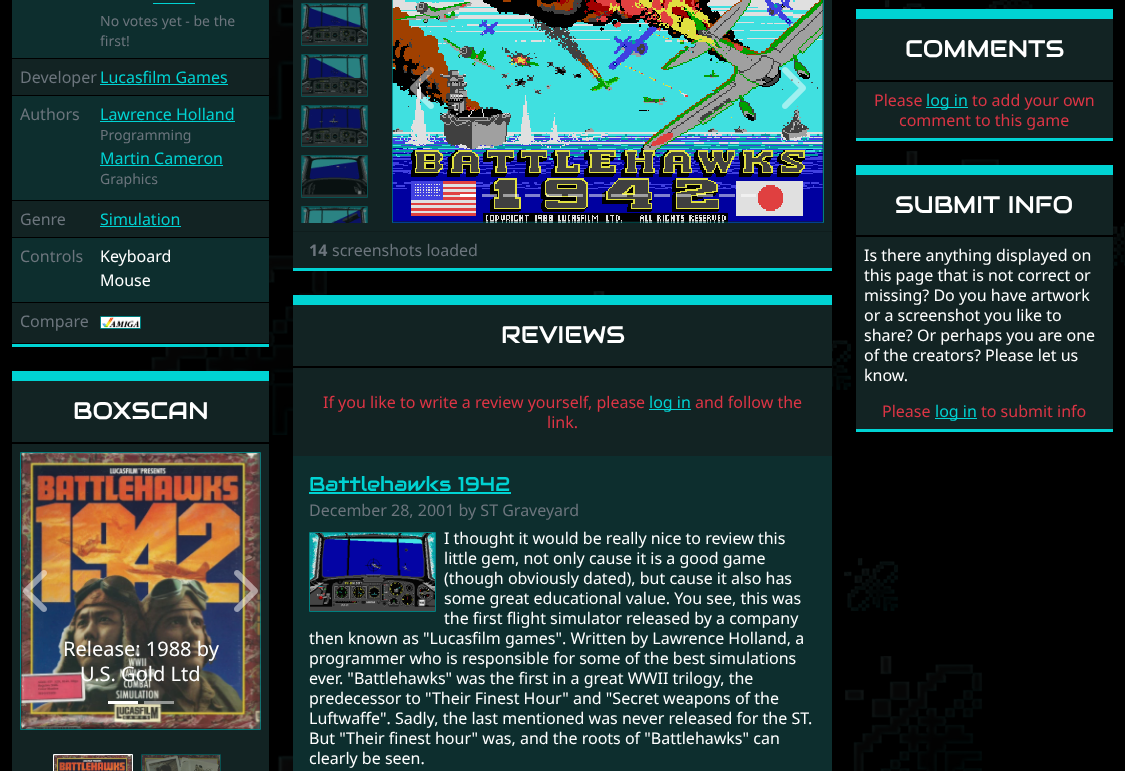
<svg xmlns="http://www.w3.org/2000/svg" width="1125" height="771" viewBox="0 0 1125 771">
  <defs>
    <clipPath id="clip1"><path d="M301 0h67v223H301z"/></clipPath>
  </defs>
  <rect width="100%" height="100%" fill="#000"/>
  <image x="139" y="0" width="986" height="771" href="img/1.png"/>
  <path d="M12 59h257v284H12z" fill="#122323"/>
  <path d="M12 344h257v3H12z" fill="#00d3d3"/>
  <path d="M12 0h257v58H12z" fill="#0d2e2e"/>
  <path d="M139 58h130v1H139z" fill="#000"/>
  <path d="M153 3h42v1H153z" fill="#00d3d3"/>
  <path d="M12 95h257v1H12z" fill="#000"/>
  <path d="M100 84h128v1H100z" fill="#00d3d3"/>
  <path d="M12 96h257v104H12z" fill="#0d2e2e"/>
  <path d="M12 200h257v1H12z" fill="#000"/>
  <path d="M100 121h135v1H100z" fill="#00d3d3"/>
  <path d="M100 165h123v1H100z" fill="#00d3d3"/>
  <path d="M12 237h257v1H12z" fill="#000"/>
  <path d="M100 226h81v1H100z" fill="#00d3d3"/>
  <path d="M12 238h257v64H12z" fill="#0d2e2e"/>
  <path d="M12 302h257v1H12z" fill="#000"/>
  <path d="M192 343h77v1H192z" fill="#000"/>
  <path d="M100.5 316.5h40v12H100.5z" fill="none" stroke="#007f7f"/>
  <image x="101" y="317" width="39" height="11" href="img/2.png"/>
  <path d="M12 381h257v390H12z" fill="#122323"/>
  <path d="M12 371h257v10H12z" fill="#00d3d3"/>
  <path d="M12 442h257v2H12z" fill="#000"/>
  <path d="M20.5 452.5h240v277H20.5z" fill="none" stroke="#007f7f"/>
  <image x="21" y="452" width="240" height="278" href="img/5.png"/>
  <image x="23" y="570" width="24" height="42" href="img/3.png"/>
  <image x="234" y="570" width="24" height="42" href="img/4.png"/>
  <path d="M108 701h30v3H108z" fill="#fff"/>
  <path d="M144 701h30v3H144z" fill="#ffffff80"/>
  <path d="M53.5 754.5h79v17H53.5z" fill="none" stroke="#fff"/>
  <image x="54" y="755" width="78" height="16" href="img/6.png"/>
  <path d="M141.5 754.5h79v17H141.5z" fill="none" stroke="#095151"/>
  <image x="142" y="755" width="78" height="16" href="img/7.png"/>
  <path d="M293 0h539v268H293z" fill="#122323"/>
  <path d="M293 268h539v3H293z" fill="#00d3d3"/>
  <path d="M301.5 3.5h66v42H301.5z" fill="none" stroke="#095151"/>
  <image x="302" y="4" width="65" height="41" href="img/8.png"/>
  <path d="M301.5 54.5h66v42H301.5z" fill="none" stroke="#095151"/>
  <image x="302" y="55" width="65" height="41" href="img/9.png"/>
  <path d="M301.5 105.5h66v41H301.5z" fill="none" stroke="#095151"/>
  <image x="302" y="106" width="65" height="40" href="img/10.png"/>
  <path d="M301.5 155.5h66v42H301.5z" fill="none" stroke="#095151"/>
  <image x="302" y="156" width="65" height="41" href="img/11.png"/>
  <path d="M392.5 -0.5h431v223H392.5z" fill="none" stroke="#007f7f"/>
  <image x="392" y="0" width="431" height="223" href="img/13.png"/>
  <image x="410" y="67" width="24" height="42" href="img/14.png"/>
  <image x="782" y="67" width="24" height="42" href="img/15.png"/>
  <path d="M460 194h16v3H460z" fill="#fff"/>
  <path d="M482 194h15v3H482z" fill="#ffffff80"/>
  <path d="M503 194h16v3H503z" fill="#ffffff80"/>
  <path d="M525 194h15v3H525z" fill="#8080d0"/>
  <path d="M546 194h16v3H546z" fill="#ffffff80"/>
  <path d="M568 194h15v3H568z" fill="#ffffff80"/>
  <path d="M589 194h16v3H589z" fill="#ffffff80"/>
  <path d="M611 194h16v3H611z" fill="#ffffff80"/>
  <path d="M633 194h15v3H633z" fill="#ffffff80"/>
  <path d="M654 194h16v3H654z" fill="#8080d0"/>
  <path d="M676 194h15v3H676z" fill="#ffffff80"/>
  <path d="M697 194h16v3H697z" fill="#ffffff80"/>
  <path d="M719 194h16v3H719z" fill="#8080d0"/>
  <path d="M741 194h15v3H741z" fill="#f0f0f0"/>
  <path d="M293 231h539v1H293z" fill="#0f1d1d"/>
  <path d="M293 305h539v151H293z" fill="#122323"/>
  <path d="M293 295h539v10H293z" fill="#00d3d3"/>
  <path d="M293 366h539v2H293z" fill="#000"/>
  <path d="M649 409h42v1H649z" fill="#00d3d3"/>
  <path d="M293 456h539v315H293z" fill="#0d2e2e"/>
  <path d="M309 492h202v2H309z" fill="#00d3d3"/>
  <path d="M309.5 532.5h126v79H309.5z" fill="none" stroke="#007f7f"/>
  <image x="310" y="533" width="125" height="78" href="img/16.png"/>
  <path d="M856 19h257v119H856z" fill="#122323"/>
  <path d="M856 9h257v10H856z" fill="#00d3d3"/>
  <path d="M856 138h257v3H856z" fill="#00d3d3"/>
  <path d="M856 80h257v2H856z" fill="#000"/>
  <path d="M926 107h42v1H926z" fill="#00d3d3"/>
  <path d="M856 175h257v254H856z" fill="#122323"/>
  <path d="M856 165h257v10H856z" fill="#00d3d3"/>
  <path d="M856 429h257v3H856z" fill="#00d3d3"/>
  <path d="M856 235h257v2H856z" fill="#000"/>
  <path d="M935 418h42v1H935z" fill="#00d3d3"/>
  <g font-family="Noto Sans" font-size="14" fill="#6c757d">
    <text x="100" y="26">No votes yet - be the</text>
    <text x="100" y="46">first!</text>
  </g>
  <text x="20" y="83" font-family="Noto Sans" font-size="16" fill="#6c757d">Developer</text>
  <text x="100" y="83" font-family="Noto Sans" font-size="16" fill="#00d3d3">Lucasfilm Games</text>
  <text x="20" y="120" font-family="Noto Sans" font-size="16" fill="#6c757d">Authors</text>
  <text x="100" y="120" font-family="Noto Sans" font-size="16" fill="#00d3d3">Lawrence Holland</text>
  <text x="100" y="140" font-family="Noto Sans" font-size="14" fill="#6c757d">Programming</text>
  <text x="100" y="164" font-family="Noto Sans" font-size="16" fill="#00d3d3">Martin Cameron</text>
  <text x="100" y="184" font-family="Noto Sans" font-size="14" fill="#6c757d">Graphics</text>
  <text x="20" y="225" font-family="Noto Sans" font-size="16" fill="#6c757d">Genre</text>
  <text x="100" y="225" font-family="Noto Sans" font-size="16" fill="#00d3d3">Simulation</text>
  <text x="20" y="262" font-family="Noto Sans" font-size="16" fill="#6c757d">Controls</text>
  <g font-family="Noto Sans" font-size="16" fill="#fff">
    <text x="100" y="262">Keyboard</text>
    <text x="100" y="286">Mouse</text>
  </g>
  <text x="20" y="327" font-family="Noto Sans" font-size="16" fill="#6c757d">Compare</text>
  <text x="73" y="419" font-family="Audiowide" font-size="24" fill="#fff">BOXSCAN</text>
  <g font-family="Noto Sans" font-size="20" fill="#fff">
    <text x="63" y="656">Release: 1988 by</text>
    <text x="80" y="681">U.S. Gold Ltd</text>
  </g>
  <text x="309" y="256" font-family="Noto Sans" font-size="16" font-weight="bold" fill="#6c757d">14</text>
  <text x="332" y="256" font-family="Noto Sans" font-size="16" fill="#6c757d">screenshots loaded</text>
  <g clip-path="url(#clip1)">
    <path d="M301.5 206.5h66v42H301.5z" fill="none" stroke="#095151"/>
  </g>
  <image x="302" y="207" width="65" height="16" href="img/12.png"/>
  <text x="501" y="343" font-family="Audiowide" font-size="24" fill="#fff">REVIEWS</text>
  <text x="323" y="408" font-family="Noto Sans" font-size="16" fill="#dc3545">If you like to write a review yourself, please</text>
  <text x="649" y="408" font-family="Noto Sans" font-size="16" fill="#00d3d3">log in</text>
  <g font-family="Noto Sans" font-size="16" fill="#dc3545">
    <text x="695" y="408">and follow the</text>
    <text x="547" y="428">link.</text>
  </g>
  <text x="309" y="491" font-family="Audiowide" font-size="20" fill="#00d3d3">Battlehawks 1942</text>
  <text x="309" y="516" font-family="Noto Sans" font-size="16" fill="#6c757d">December 28, 2001 by ST Graveyard</text>
  <g font-family="Noto Sans" font-size="16" fill="#fff">
    <text x="444" y="544">I thought it would be really nice to review this</text>
    <text x="444" y="564">little gem, not only cause it is a good game</text>
    <text x="444" y="584">(though obviously dated), but cause it also has</text>
    <text x="444" y="604">some great educational value. You see, this was</text>
    <text x="444" y="624">the first flight simulator released by a company</text>
    <text x="309" y="644">then known as "Lucasfilm games". Written by Lawrence Holland, a</text>
    <text x="309" y="664">programmer who is responsible for some of the best simulations</text>
    <text x="309" y="684">ever. "Battlehawks" was the first in a great WWII trilogy, the</text>
    <text x="309" y="704">predecessor to "Their Finest Hour" and "Secret weapons of the</text>
    <text x="309" y="724">Luftwaffe". Sadly, the last mentioned was never released for the ST.</text>
    <text x="309" y="744">But "Their finest hour" was, and the roots of "Battlehawks" can</text>
    <text x="309" y="764">clearly be seen.</text>
  </g>
  <text x="905" y="57" font-family="Audiowide" font-size="24" fill="#fff">COMMENTS</text>
  <text x="874" y="106" font-family="Noto Sans" font-size="16" fill="#dc3545">Please</text>
  <text x="926" y="106" font-family="Noto Sans" font-size="16" fill="#00d3d3">log in</text>
  <g font-family="Noto Sans" font-size="16" fill="#dc3545">
    <text x="972" y="106">to add your own</text>
    <text x="899" y="126">comment to this game</text>
  </g>
  <text x="895" y="213" font-family="Audiowide" font-size="24" fill="#fff">SUBMIT INFO</text>
  <g font-family="Noto Sans" font-size="16" fill="#fff">
    <text x="864" y="261">Is there anything displayed on</text>
    <text x="864" y="281">this page that is not correct or</text>
    <text x="864" y="301">missing? Do you have artwork</text>
    <text x="864" y="321">or a screenshot you like to</text>
    <text x="864" y="341">share? Or perhaps you are one</text>
    <text x="864" y="361">of the creators? Please let us</text>
    <text x="864" y="381">know.</text>
  </g>
  <text x="882" y="417" font-family="Noto Sans" font-size="16" fill="#dc3545">Please</text>
  <text x="935" y="417" font-family="Noto Sans" font-size="16" fill="#00d3d3">log in</text>
  <text x="981" y="417" font-family="Noto Sans" font-size="16" fill="#dc3545">to submit info</text>
</svg>
